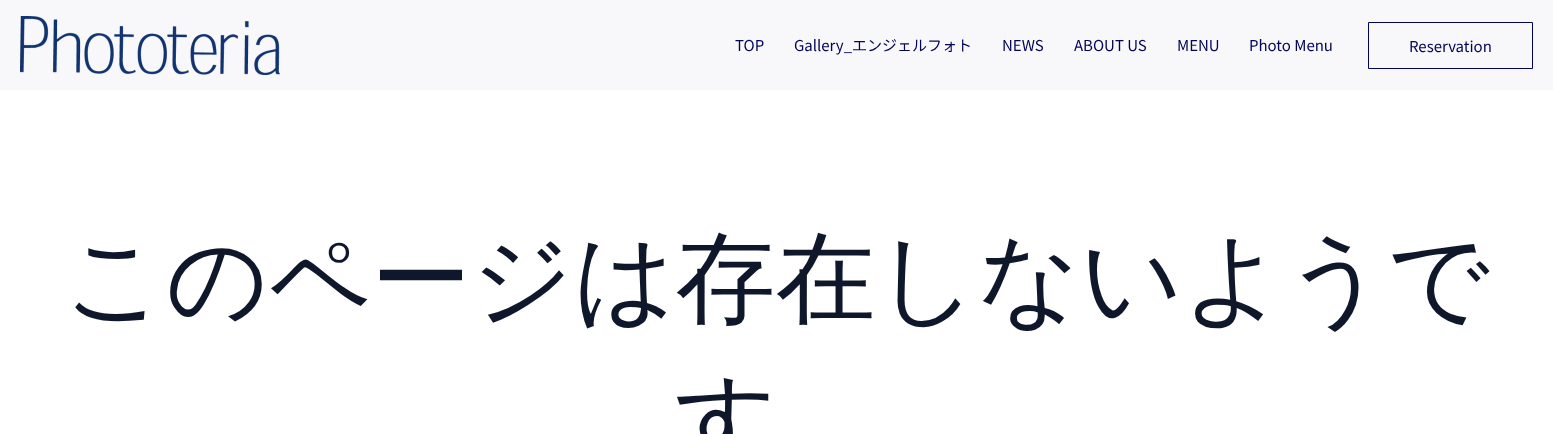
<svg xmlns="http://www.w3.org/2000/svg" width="1553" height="434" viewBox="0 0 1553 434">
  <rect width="100%" height="100%" fill="#fff"/>
  <path d="M0 0h1553v90H0z" fill="#f8f8fa"/>
  <image x="20" y="16" width="260" height="59" href="img/1.png"/>
  <path d="M1368.5 22.5h164v46H1368.5z" fill="none" stroke="#020459"/>
  <g font-family="Noto Sans JP" font-size="15" fill="#020459">
    <text x="735" y="51">TOP</text>
    <text x="794" y="51">Gallery_エンジェルフォト</text>
    <text x="1002" y="51">NEWS</text>
    <text x="1074" y="51">ABOUT US</text>
    <text x="1177" y="51">MENU</text>
    <text x="1249" y="51">Photo Menu</text>
    <text x="1409" y="52">Reservation</text>
  </g>
  <g font-family="WenQuanYi Zen Hei" font-size="100" font-weight="500" fill="#0f172a">
    <text x="64" y="313">このページは存在しないようで</text>
    <text x="675" y="453">す</text>
  </g>
</svg>
